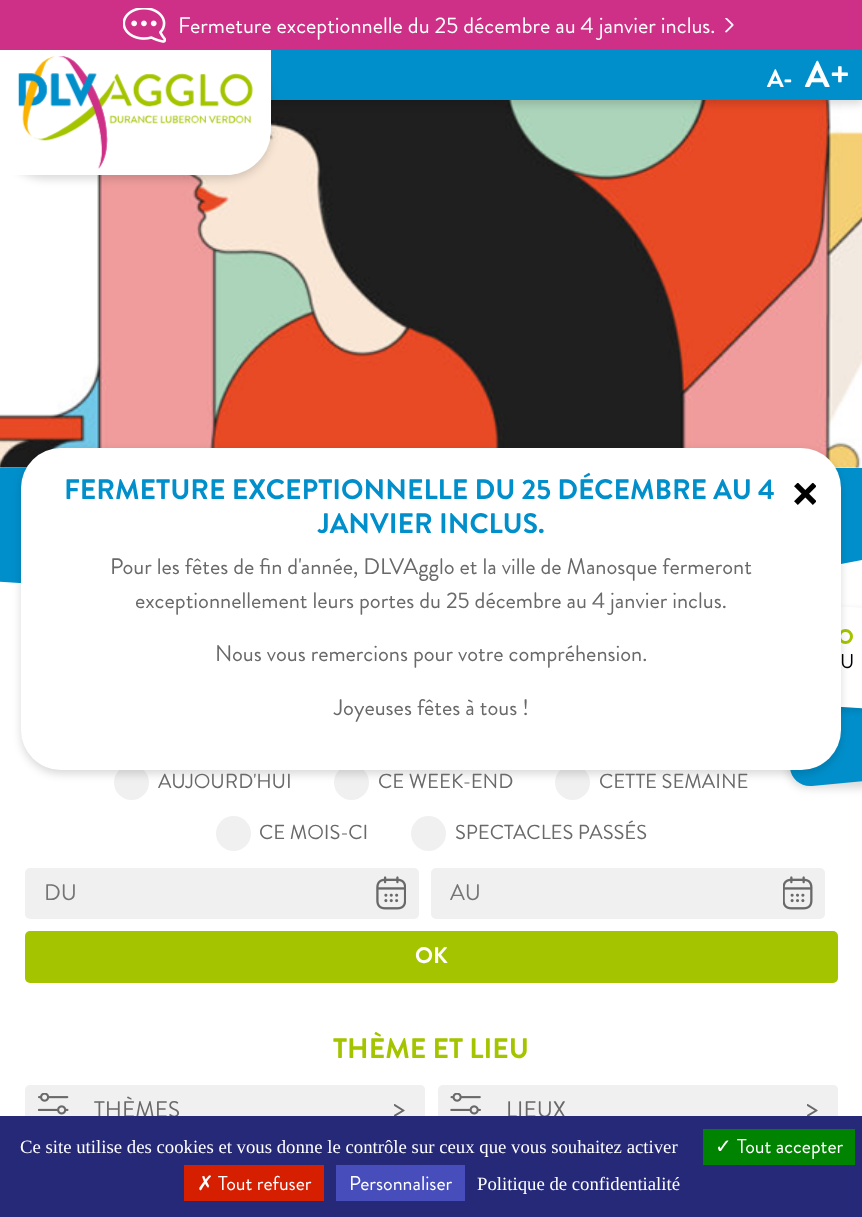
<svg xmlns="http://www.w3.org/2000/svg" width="862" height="1217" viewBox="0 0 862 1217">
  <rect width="100%" height="100%" fill="#fff"/>
  <path d="M0 467h862v1H0z" fill="#f0f0f0"/>
  <image x="0" y="100" width="862" height="368" href="img/5.png"/>
  <path d="M0 54h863v50H0z" fill="#00000026" filter="blur(4px)"/>
  <path d="M271 50h591v50H271z" fill="#008fcb"/>
  <rect y="54" width="271" height="125" rx="45" fill="#00000026" filter="blur(4px)"/>
  <path d="M0 0h862v50H0z" fill="#cf3087"/>
  <image x="123" y="8" width="43" height="35" href="img/1.png"/>
  <image x="725" y="18" width="9" height="15" href="img/2.png"/>
  <rect x="788" y="694" width="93" height="94" rx="20" fill="#00000026" filter="blur(4px)"/>
  <path d="M804 693L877 686L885 779L812 786C801 787 791 779 790 768L785 714C784 703 793 693 804 693Z" fill="#008fcb"/>
  <path d="M0 468h862v115H0z" fill="#008fcb"/>
  <path d="M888 555L558 618L-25 580V624H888Z" fill="#fff"/>
  <rect x="778" y="610" width="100" height="100" rx="20" fill="#00000026" filter="blur(3.5px)"/>
  <path d="M801 604L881 609L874 709L794 704C783 703 775 693 776 682L780 622C781 611 790 603 801 604Z" fill="#fff"/>
  <circle cx="845.5" cy="636.5" r="6" fill="none" stroke="#a5c400" stroke-width="3"/>
  <circle cx="131.5" cy="782.5" r="17.5" fill="#f0f0f0"/>
  <circle cx="351.5" cy="782.5" r="17.5" fill="#f0f0f0"/>
  <circle cx="572.5" cy="782.5" r="17.5" fill="#f0f0f0"/>
  <rect x="21" y="451" width="820" height="323" rx="40" fill="#00000026" filter="blur(4px)"/>
  <rect x="21" y="448" width="820" height="322" rx="40" fill="#fff"/>
  <image x="794" y="483" width="22" height="22" href="img/3.png"/>
  <path d="M0 50H271V130C271 155 251 175 226 175H0Z" fill="#fff"/>
  <image x="18" y="56" width="235" height="113" href="img/4.png"/>
  <circle cx="233.5" cy="833.5" r="17.5" fill="#f0f0f0"/>
  <circle cx="428.5" cy="833.5" r="17.5" fill="#f0f0f0"/>
  <rect x="25" y="868" width="394" height="51" rx="5" fill="#f0f0f0"/>
  <image x="376" y="876" width="30" height="34" href="img/6.png"/>
  <rect x="431" y="868" width="394" height="51" rx="5" fill="#f0f0f0"/>
  <image x="783" y="876" width="30" height="34" href="img/7.png"/>
  <rect x="25" y="931" width="813" height="52" rx="5" fill="#a5c400"/>
  <rect x="25" y="1085" width="400" height="51" rx="5" fill="#f0f0f0"/>
  <image x="38" y="1093" width="31" height="22" href="img/8.png"/>
  <rect x="75" y="1085" width="350" height="51" rx="5" fill="#f0f0f0"/>
  <rect x="438" y="1085" width="400" height="51" rx="5" fill="#f0f0f0"/>
  <image x="450" y="1093" width="31" height="22" href="img/9.png"/>
  <rect x="488" y="1085" width="350" height="51" rx="5" fill="#f0f0f0"/>
  <text x="178" y="33" font-family="Brandon Grotesque" font-size="22.5" fill="#fff">Fermeture exceptionnelle du 25 décembre au 4 janvier inclus.</text>
  <g font-family="Brandon Grotesque" font-size="28.1" font-weight="bold" fill="#008fcb">
    <text x="64" y="499">FERMETURE EXCEPTIONNELLE DU 25 DÉCEMBRE AU 4</text>
    <text x="318" y="533">JANVIER INCLUS.</text>
  </g>
  <g font-family="Brandon Grotesque" font-size="22.5" fill="#696969">
    <text x="110" y="574">Pour les fêtes de fin d'année, DLVAgglo et la ville de Manosque fermeront</text>
    <text x="135" y="608">exceptionnellement leurs portes du 25 décembre au 4 janvier inclus.</text>
    <text x="215" y="661">Nous vous remercions pour votre compréhension.</text>
    <text x="334" y="715">Joyeuses fêtes à tous !</text>
  </g>
  <text x="767" y="87" font-family="Brandon Grotesque" font-size="25" font-weight="bold" fill="#fff">A-</text>
  <text x="805" y="87" font-family="Brandon Grotesque" font-size="37" font-weight="bold" fill="#fff">A+</text>
  <text x="840" y="668" font-family="Brandon Grotesque" font-size="20" fill="#000">U</text>
  <g font-family="Brandon Grotesque" font-size="20.25" fill="#696969">
    <text x="158" y="788">AUJOURD'HUI</text>
    <text x="378" y="788">CE WEEK-END</text>
    <text x="599" y="788">CETTE SEMAINE</text>
    <text x="259" y="839">CE MOIS-CI</text>
    <text x="455" y="839">SPECTACLES PASSÉS</text>
  </g>
  <g font-family="Brandon Grotesque" font-size="22.5" fill="#757575">
    <text x="44" y="900">DU</text>
    <text x="450" y="900">AU</text>
  </g>
  <text x="415" y="963" font-family="Brandon Grotesque" font-size="22.5" font-weight="bold" fill="#fff">OK</text>
  <text x="333" y="1058" font-family="Brandon Grotesque" font-size="28.1" font-weight="bold" fill="#a5c400">THÈME ET LIEU</text>
  <text x="94" y="1117" font-family="Brandon Grotesque" font-size="22.5" fill="#696969">THÈMES</text>
  <text x="393" y="1117" font-family="Brandon Grotesque" font-size="28.1" fill="#696969">&gt;</text>
  <text x="506" y="1117" font-family="Brandon Grotesque" font-size="22.5" fill="#696969">LIEUX</text>
  <text x="806" y="1117" font-family="Brandon Grotesque" font-size="28.1" fill="#696969">&gt;</text>
  <path d="M0 1116h862v101H0z" fill="#252978"/>
  <text x="20" y="1153" font-family="Liberation Serif" font-size="18.75" fill="#fff">Ce site utilise des cookies et vous donne le contrôle sur ceux que vous souhaitez activer</text>
  <path d="M703 1129h152v36H703z" fill="#008300"/>
  <text x="715" y="1153" font-family="DejaVu Sans" font-size="20" fill="#fff">✓</text>
  <text x="737" y="1153" font-family="Brandon Grotesque" font-size="20" fill="#fff">Tout accepter</text>
  <path d="M184 1165h140v36H184z" fill="#d61e00"/>
  <text x="197" y="1190" font-family="DejaVu Sans" font-size="20" fill="#fff">✗</text>
  <text x="218" y="1190" font-family="Brandon Grotesque" font-size="20" fill="#fff">Tout refuser</text>
  <path d="M336 1165h129v36H336z" fill="#474dba"/>
  <text x="349" y="1190" font-family="Brandon Grotesque" font-size="20" fill="#fff">Personnaliser</text>
  <text x="477" y="1190" font-family="Liberation Serif" font-size="18.75" fill="#fff">Politique de confidentialité</text>
</svg>
